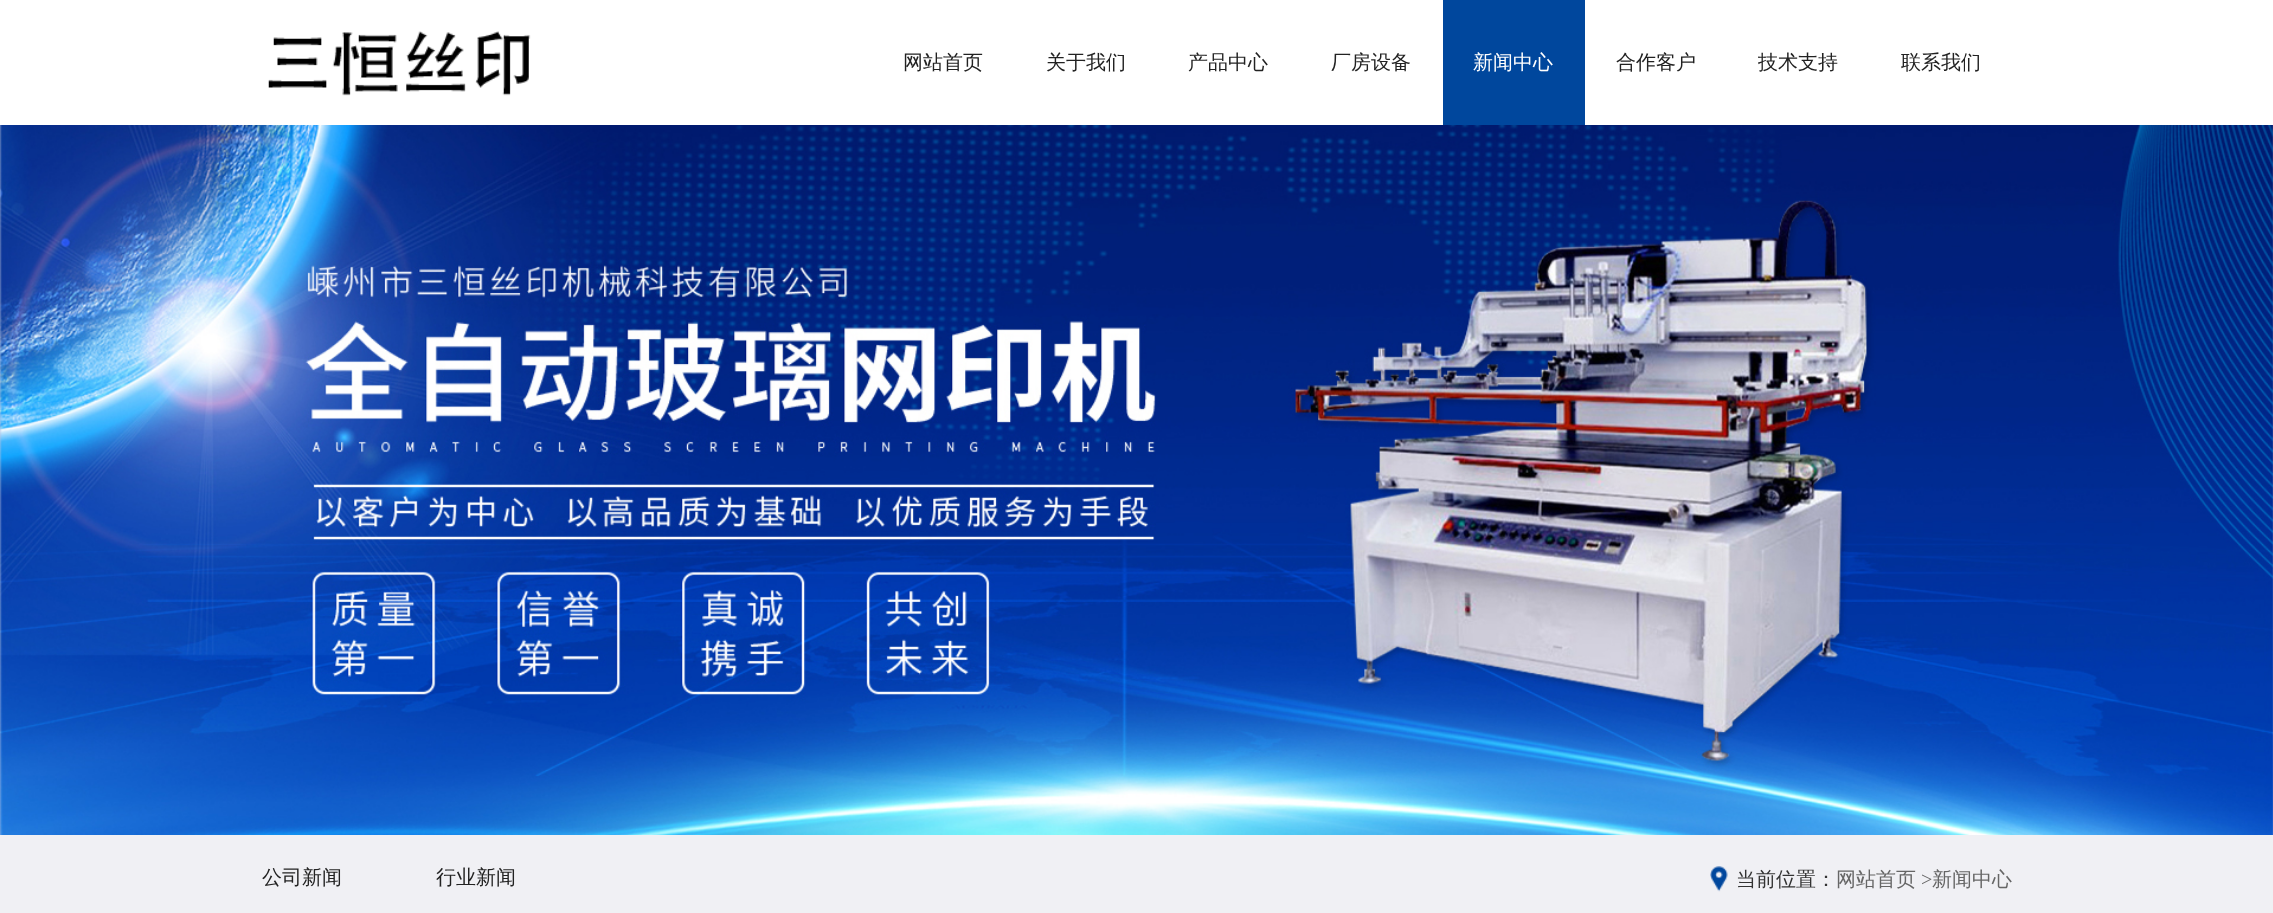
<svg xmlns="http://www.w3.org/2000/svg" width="2273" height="913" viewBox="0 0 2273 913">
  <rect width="100%" height="100%" fill="#fff"/>
  <image x="268" y="31" width="263" height="65" href="img/1.png"/>
  <path d="M1443 0h142v125H1443z" fill="#00479d"/>
  <image x="0" y="125" width="2273" height="710" href="img/2.png"/>
  <path d="M0 835h2273v78H0z" fill="#f0f0f4"/>
  <image x="1710" y="866" width="18" height="26" href="img/3.png"/>
  <g font-family="WenQuanYi Zen Hei" font-size="20" font-weight="500" fill="#222">
    <text x="903" y="69">网站首页</text>
    <text x="1046" y="69">关于我们</text>
    <text x="1188" y="69">产品中心</text>
    <text x="1331" y="69">厂房设备</text>
  </g>
  <text x="1473" y="69" font-family="WenQuanYi Zen Hei" font-size="20" font-weight="500" fill="#fff">新闻中心</text>
  <g font-family="WenQuanYi Zen Hei" font-size="20" font-weight="500" fill="#222">
    <text x="1616" y="69">合作客户</text>
    <text x="1758" y="69">技术支持</text>
    <text x="1901" y="69">联系我们</text>
    <text x="262" y="884">公司新闻</text>
    <text x="436" y="884">行业新闻</text>
  </g>
  <text x="1736" y="886" font-family="WenQuanYi Zen Hei" font-size="20" font-weight="500" fill="#333">当前位置：</text>
  <text x="1836" y="886" font-family="WenQuanYi Zen Hei" font-size="20" font-weight="500" fill="#666">网站首页</text>
  <text x="1921" y="886" font-family="Liberation Serif" font-size="20" fill="#666">&gt;</text>
  <text x="1932" y="886" font-family="WenQuanYi Zen Hei" font-size="20" font-weight="500" fill="#666">新闻中心</text>
</svg>
